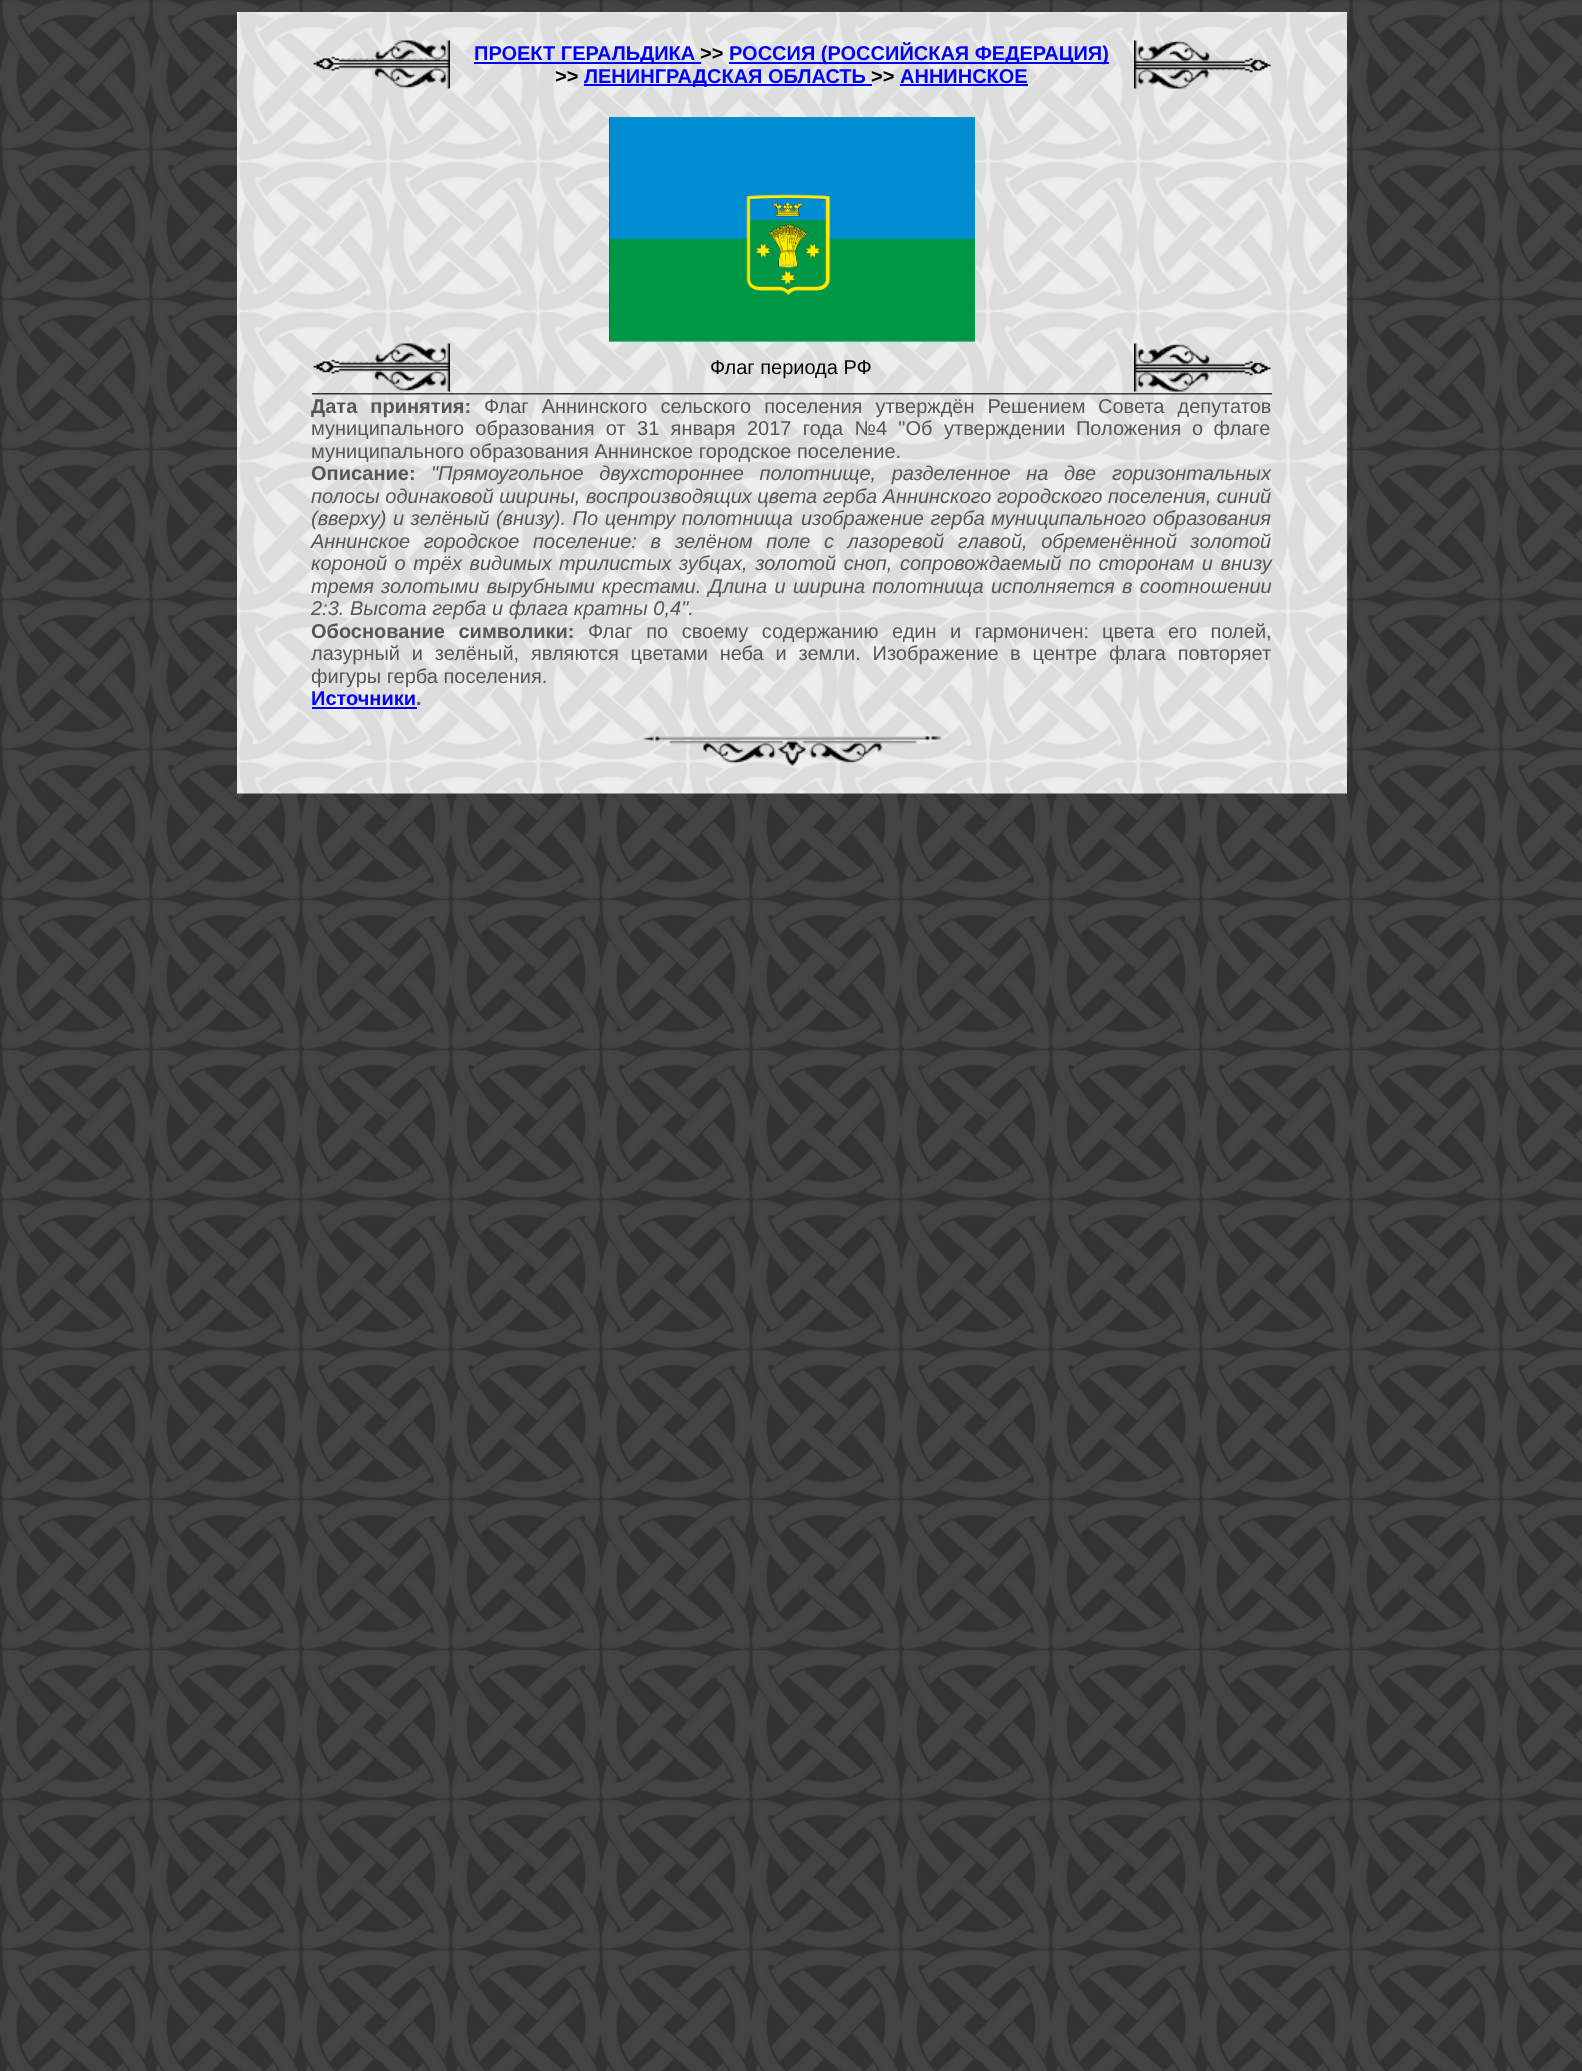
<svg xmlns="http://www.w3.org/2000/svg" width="1582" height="2071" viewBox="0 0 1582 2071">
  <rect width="100%" height="100%" fill="#fff"/>
  <image x="0" y="0" width="1582" height="2071" href="img/1.png"/>
  <image x="237" y="12" width="1110" height="782" href="img/2.png"/>
  <image x="313" y="40" width="137" height="49" href="img/3.png"/>
  <path d="M474 62h227v2H474z" fill="#00f"/>
  <path d="M729 62h380v2H729z" fill="#00f"/>
  <path d="M584 84h288v2H584z" fill="#00f"/>
  <path d="M900 84h128v2H900z" fill="#00f"/>
  <image x="1134" y="40" width="137" height="49" href="img/4.png"/>
  <image x="609" y="117" width="366" height="225" href="img/5.png"/>
  <image x="313" y="343" width="137" height="49" href="img/6.png"/>
  <image x="1134" y="343" width="137" height="49" href="img/7.png"/>
  <image x="312" y="393" width="960" height="2" href="img/8.png"/>
  <path d="M312 707h105v2H312z" fill="#00f"/>
  <image x="642" y="736" width="300" height="31" href="img/9.png"/>
  <text x="474" y="60" font-family="Liberation Sans" font-size="20" font-weight="bold" fill="#00f">ПРОЕКТ ГЕРАЛЬДИКА</text>
  <text x="700" y="60" font-family="Liberation Sans" font-size="20" font-weight="bold" fill="#000">&gt;&gt;</text>
  <text x="729" y="60" font-family="Liberation Sans" font-size="20" font-weight="bold" fill="#00f">РОССИЯ (РОССИЙСКАЯ ФЕДЕРАЦИЯ)</text>
  <text x="555" y="83" font-family="Liberation Sans" font-size="20" font-weight="bold" fill="#000">&gt;&gt;</text>
  <text x="584" y="83" font-family="Liberation Sans" font-size="20" font-weight="bold" fill="#00f">ЛЕНИНГРАДСКАЯ ОБЛАСТЬ</text>
  <text x="871" y="83" font-family="Liberation Sans" font-size="20" font-weight="bold" fill="#000">&gt;&gt;</text>
  <text x="900" y="83" font-family="Liberation Sans" font-size="20" font-weight="bold" fill="#00f">АННИНСКОЕ</text>
  <text x="710" y="374" font-family="Liberation Sans" font-size="20" fill="#000">Флаг периода РФ</text>
  <text x="311" y="413" word-spacing="7.5" font-family="Liberation Sans" font-size="20" font-weight="bold" fill="#555">Дата принятия:</text>
  <g font-family="Liberation Sans" font-size="20" fill="#555">
    <text x="484" y="413" word-spacing="7.5">Флаг Аннинского сельского поселения утверждён Решением</text>
    <text x="1098" y="413" word-spacing="7.5">Совета депутатов</text>
    <text x="311" y="435" word-spacing="5.75">муниципального образования от 31 января 2017 года №4 "Об</text>
    <text x="944" y="435" word-spacing="5">утверждении Положения о флаге</text>
    <text x="311" y="458">муниципального образования Аннинское городское поселение.</text>
  </g>
  <text x="311" y="480" font-family="Liberation Sans" font-size="20" font-weight="bold" fill="#555">Описание:</text>
  <g font-family="Liberation Sans" font-size="20" font-style="italic" fill="#555">
    <text x="431" y="480" word-spacing="10">"Прямоугольное двухстороннее полотнище, разделенное на две</text>
    <text x="1112" y="480">горизонтальных</text>
    <text x="311" y="503">полосы одинаковой ширины, воспроизводящих цвета герба Аннинского городского поселения, синий</text>
    <text x="311" y="525" word-spacing="1">(вверху) и зелёный (внизу). По центру полотнища</text>
    <text x="801" y="525" word-spacing="1">изображение герба муниципального образования</text>
    <text x="311" y="548" word-spacing="8">Аннинское городское поселение: в</text>
    <text x="675" y="548" word-spacing="8">зелёном поле с лазоревой главой, обременённой золотой</text>
    <text x="311" y="570" word-spacing="2">короной о трёх видимых</text>
    <text x="559" y="570" word-spacing="2">трилистых зубцах, золотой сноп, сопровождаемый по сторонам и внизу</text>
    <text x="311" y="593">тремя</text>
    <text x="381" y="593" word-spacing="1.75">золотыми вырубными крестами. Длина и ширина полотнища исполняется в соотношении</text>
    <text x="311" y="615">2:3. Высота герба и флага кратны 0,4".</text>
  </g>
  <text x="311" y="638" word-spacing="8" font-family="Liberation Sans" font-size="20" font-weight="bold" fill="#555">Обоснование символики:</text>
  <g font-family="Liberation Sans" font-size="20" fill="#555">
    <text x="588" y="638" word-spacing="8">Флаг по своему содержанию един и гармоничен:</text>
    <text x="1102" y="638" word-spacing="8">цвета его полей,</text>
    <text x="311" y="660" word-spacing="6.25">лазурный и зелёный, являются цветами неба и земли. Изображение</text>
    <text x="1010" y="660" word-spacing="6.25">в центре флага повторяет</text>
    <text x="311" y="683">фигуры герба поселения.</text>
  </g>
  <text x="311" y="705" font-family="Liberation Sans" font-size="20" font-weight="bold" fill="#00f">Источники</text>
  <text x="416" y="705" font-family="Liberation Sans" font-size="20" font-weight="bold" fill="#555">.</text>
</svg>
